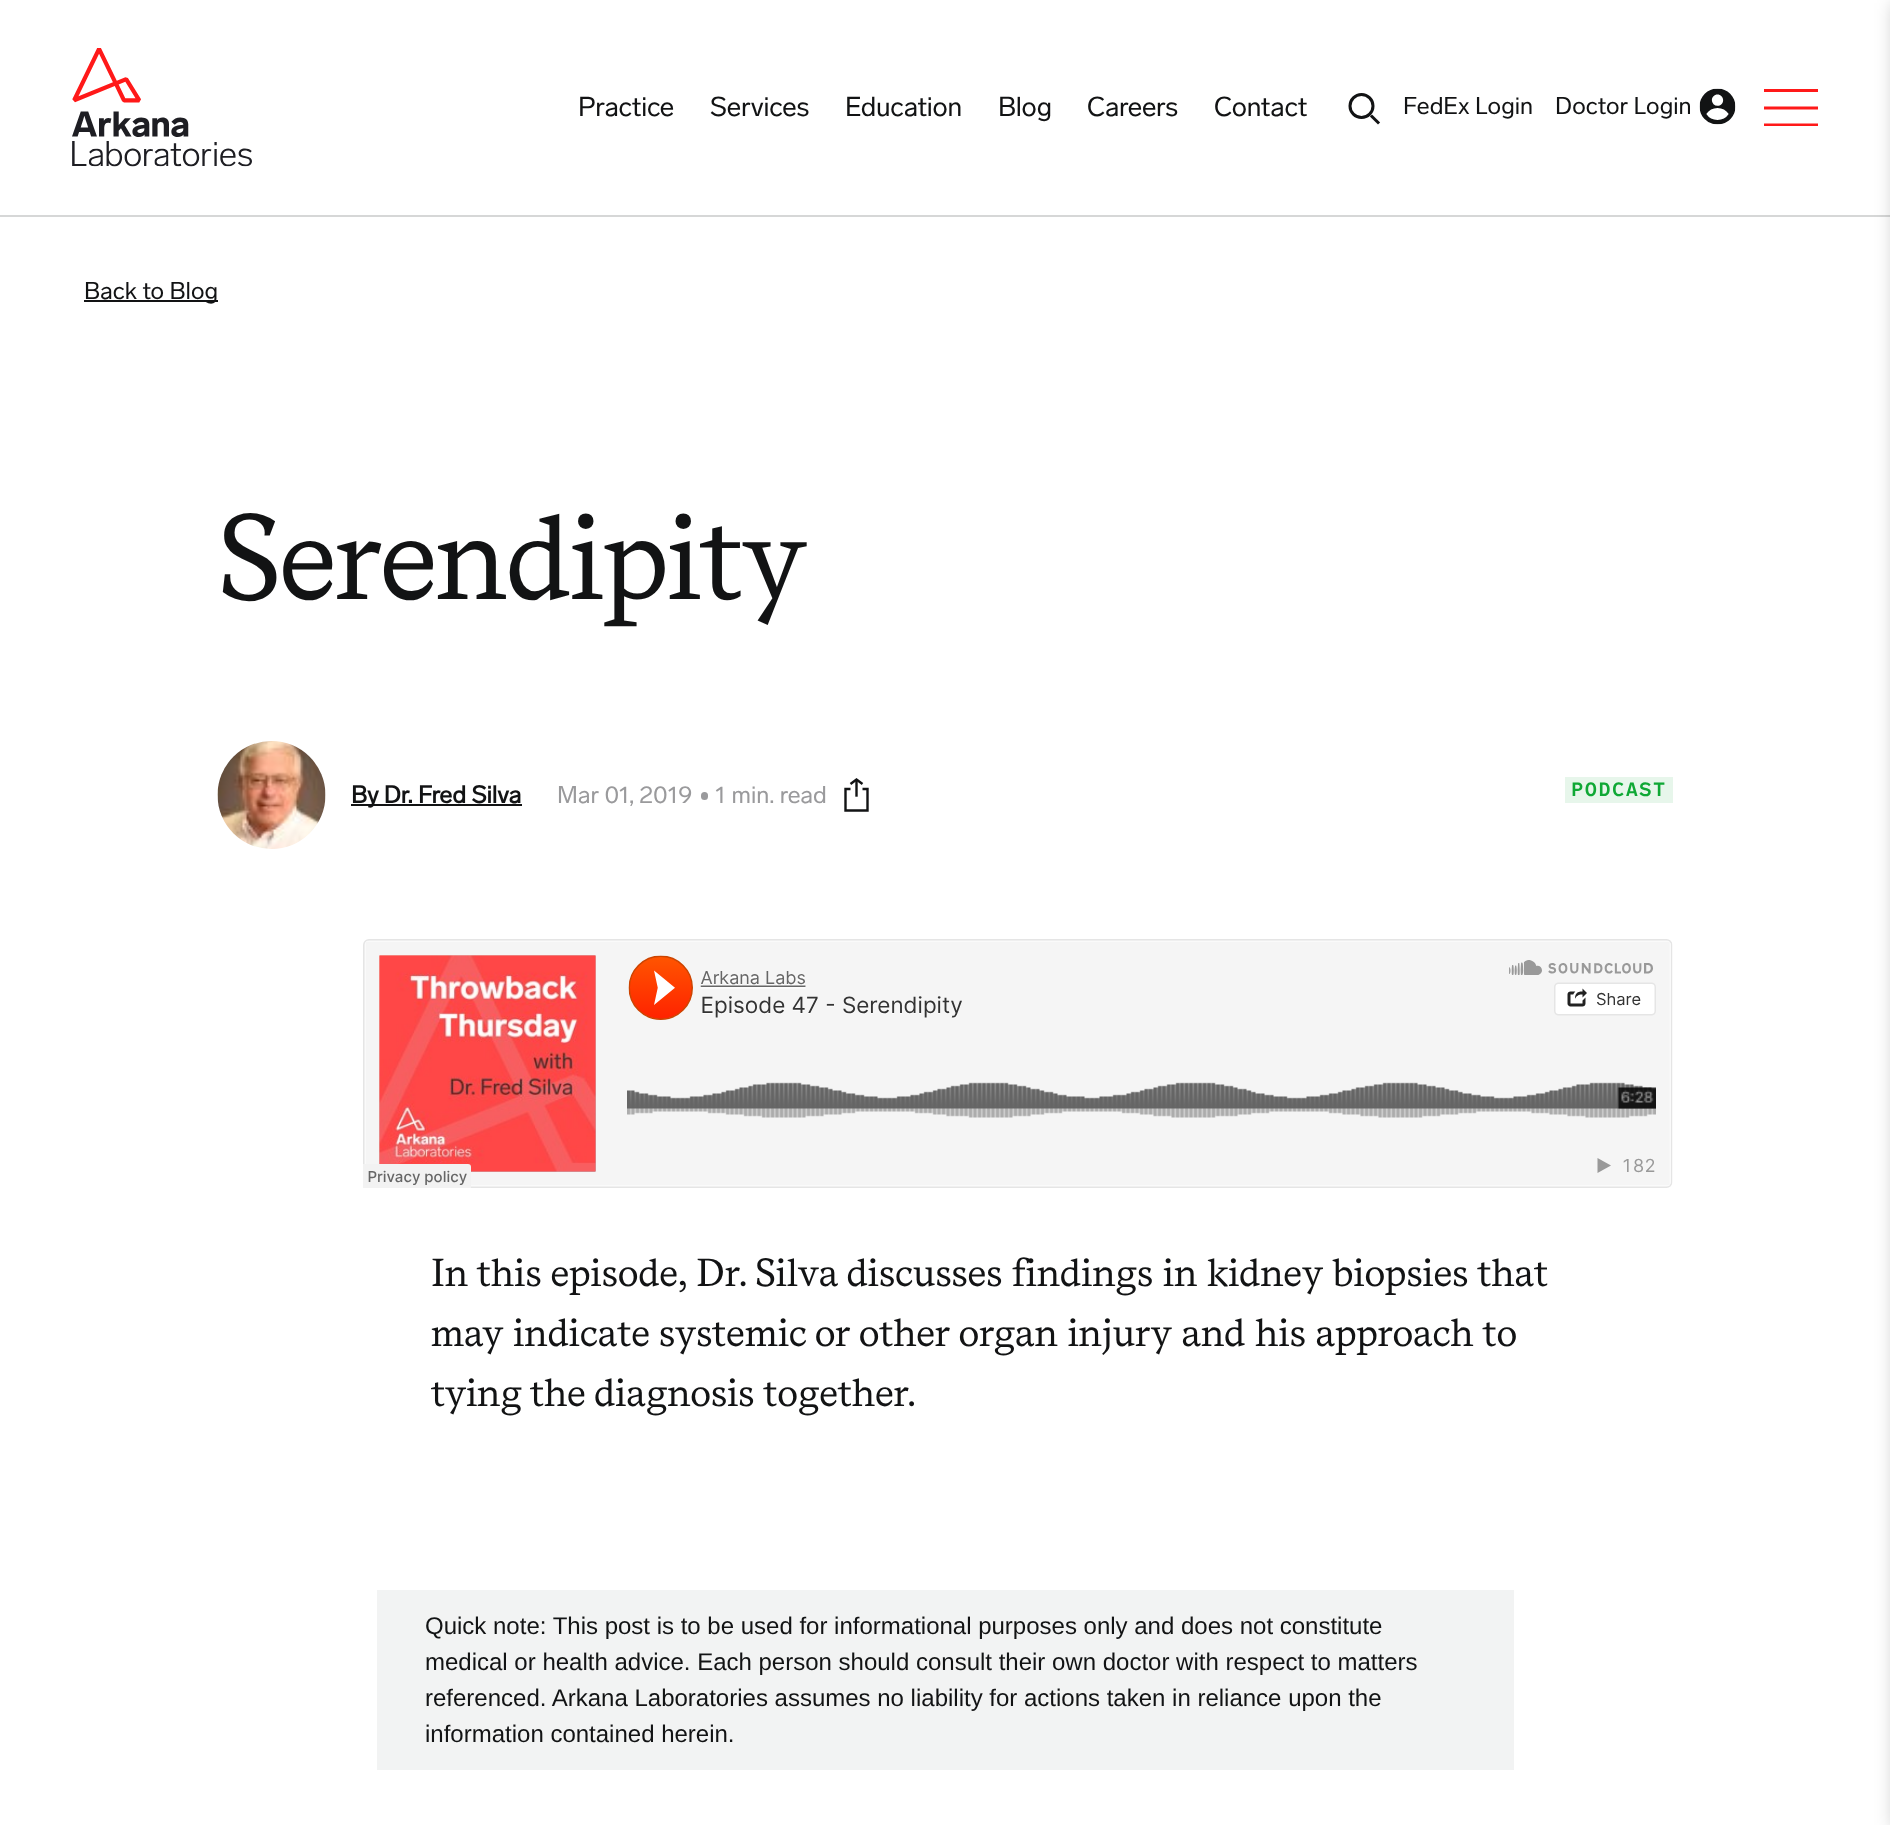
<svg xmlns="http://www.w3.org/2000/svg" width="1890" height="1825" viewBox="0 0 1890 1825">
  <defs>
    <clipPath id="clip1"><path d="M1764 89h54v37H1764z"/></clipPath>
  </defs>
  <rect width="100%" height="100%" fill="#fff"/>
  <path d="M0 215h1890v2H0z" fill="#d6d7d7"/>
  <image x="72" y="48" width="180" height="119" href="img/1.png"/>
  <circle cx="1361.5" cy="106" r="11.5" fill="none" stroke="#121314" stroke-width="3"/>
  <path d="M1372 116.5L1378 122.5" fill="none" stroke="#121314" stroke-width="3" stroke-linecap="square"/>
  <image x="1699" y="88" width="37" height="37" href="img/2.png"/>
  <g clip-path="url(#clip1)">
    <path d="M1816.5 108H1765.5M1816.5 90.5H1765.5M1816.5 125H1765.5" fill="none" stroke="#ff1919" stroke-width="3" stroke-linecap="square"/>
  </g>
  <path d="M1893 3h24v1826H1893z" fill="#00000033" filter="blur(9px)"/>
  <path d="M84 300h134v2H84z" fill="#121314"/>
  <image x="217" y="741" width="109" height="108" href="img/3.png"/>
  <path d="M351 804h171v2H351z" fill="#121314"/>
  <rect x="701" y="792" width="7" height="8" rx="3.5" fill="#9a9a9c"/>
  <path d="M850.5 784L856.5 779.5L862.5 784" fill="none" stroke="#121314" stroke-width="2.4"/>
  <path d="M856.5 795.5V781" fill="none" stroke="#121314" stroke-width="2.4" stroke-linecap="square"/>
  <path d="M862.5 789H867.5V810.5H845.5V789H850.5" fill="none" stroke="#121314" stroke-width="2.4"/>
  <path d="M1565 777h108v26H1565z" fill="#e7f6eb"/>
  <image x="363" y="939" width="1310" height="249" href="img/4.png"/>
  <path d="M377 1590h1137v180H377z" fill="#f2f3f3"/>
  <g font-family="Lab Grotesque" font-size="27" letter-spacing="-0.25" fill="#121314">
    <text x="578" y="116">Practice</text>
    <text x="710" y="116">Services</text>
    <text x="845" y="116">Education</text>
    <text x="998" y="116">Blog</text>
    <text x="1087" y="116">Careers</text>
    <text x="1214" y="116">Contact</text>
  </g>
  <g font-family="Lab Grotesque" font-size="24" fill="#121314">
    <text x="1403" y="114">FedEx Login</text>
    <text x="1555" y="114">Doctor Login</text>
    <text x="84" y="299">Back to Blog</text>
  </g>
  <text x="218" y="599" font-family="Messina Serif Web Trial" font-size="120" letter-spacing="-2.25" fill="#121314">Serendipity</text>
  <text x="351" y="803" font-family="Lab Grotesque" font-size="24" font-weight="bold" fill="#121314">By Dr. Fred Silva</text>
  <g font-family="Lab Grotesque" font-size="24" fill="#9a9a9c">
    <text x="557" y="803">Mar 01, 2019</text>
    <text x="715" y="803">1 min. read</text>
  </g>
  <text x="1571" y="796" font-family="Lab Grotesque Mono" font-size="21" font-weight="bold" letter-spacing="1.5" fill="#0fa835">PODCAST</text>
  <g font-family="Messina Serif Web Trial" font-size="39" letter-spacing="-0.33" fill="#121314">
    <text x="431" y="1286">In this episode, Dr. Silva discusses findings in kidney biopsies that</text>
    <text x="431" y="1346">may indicate systemic or other organ injury and his approach to</text>
    <text x="431" y="1406">tying the diagnosis together.</text>
  </g>
  <g font-family="Liberation Sans" font-size="24" fill="#121314">
    <text x="425" y="1634">Quick note: This post is to be used for informational purposes only and does not constitute</text>
    <text x="425" y="1670">medical or health advice. Each person should consult their own doctor with respect to matters</text>
    <text x="425" y="1706">referenced. Arkana Laboratories assumes no liability for actions taken in reliance upon the</text>
    <text x="425" y="1742">information contained herein.</text>
  </g>
</svg>
